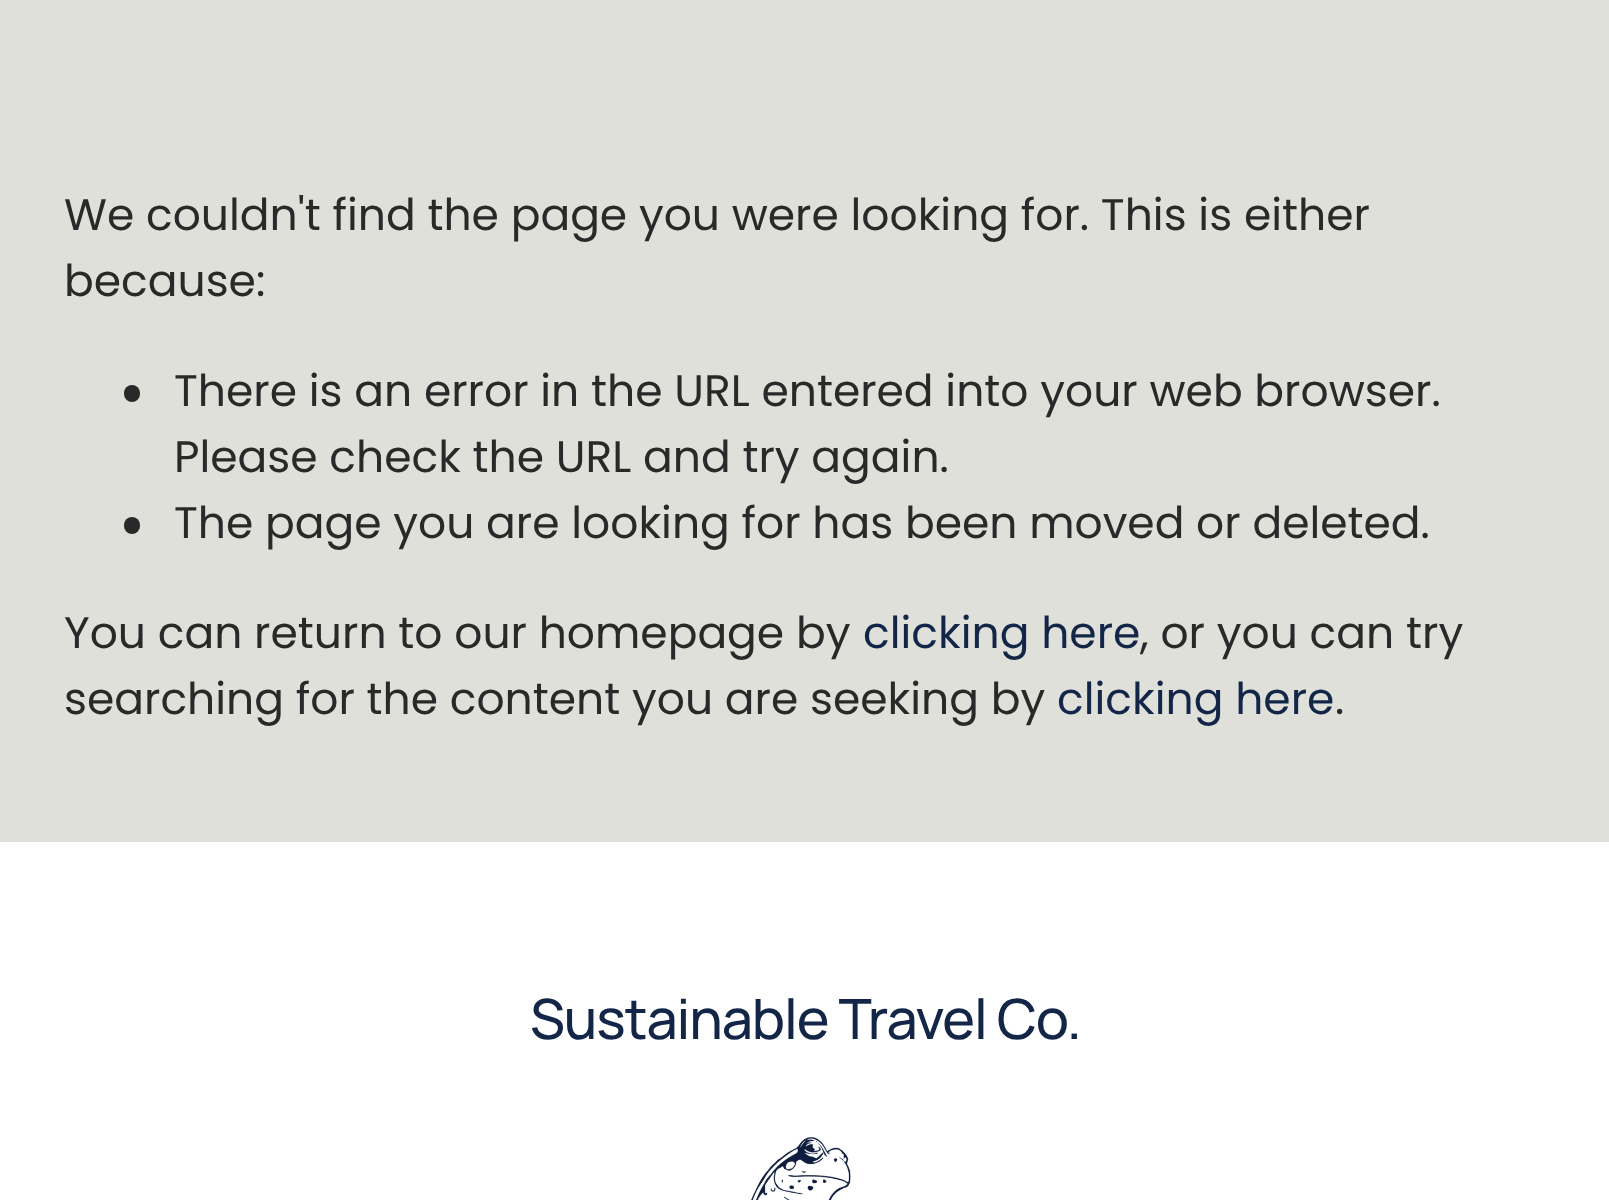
<svg xmlns="http://www.w3.org/2000/svg" width="1609" height="1200" viewBox="0 0 1609 1200">
  <rect width="100%" height="100%" fill="#e0e0db"/>
  <rect x="124" y="385" width="16" height="17" rx="8" fill="#2a2829"/>
  <rect x="124" y="517" width="16" height="17" rx="8" fill="#2a2829"/>
  <path d="M0 842h1609v358H0z" fill="#fff"/>
  <image x="751" y="1137" width="100" height="63" href="img/1.png"/>
  <g font-family="Poppins" font-size="44" fill="#2a2829">
    <text x="64" y="230">We couldn't find the page you were looking for. This is either</text>
    <text x="64" y="296">because:</text>
    <text x="174" y="406">There is an error in the URL entered into your web browser.</text>
    <text x="174" y="472">Please check the URL and try again.</text>
    <text x="174" y="538">The page you are looking for has been moved or deleted.</text>
    <text x="64" y="648">You can return to our homepage by</text>
  </g>
  <text x="863" y="648" font-family="Poppins" font-size="44" fill="#132648">clicking here</text>
  <g font-family="Poppins" font-size="44" fill="#2a2829">
    <text x="1140" y="648">, or you can try</text>
    <text x="64" y="714">searching for the content you are seeking by</text>
  </g>
  <text x="1057" y="714" font-family="Poppins" font-size="44" fill="#132648">clicking here</text>
  <text x="1335" y="714" font-family="Poppins" font-size="44" fill="#2a2829">.</text>
  <text x="530" y="1039" font-family="Manrope" font-size="55.5" font-weight="500" letter-spacing="-1.1" fill="#132648">Sustainable Travel Co.</text>
</svg>
